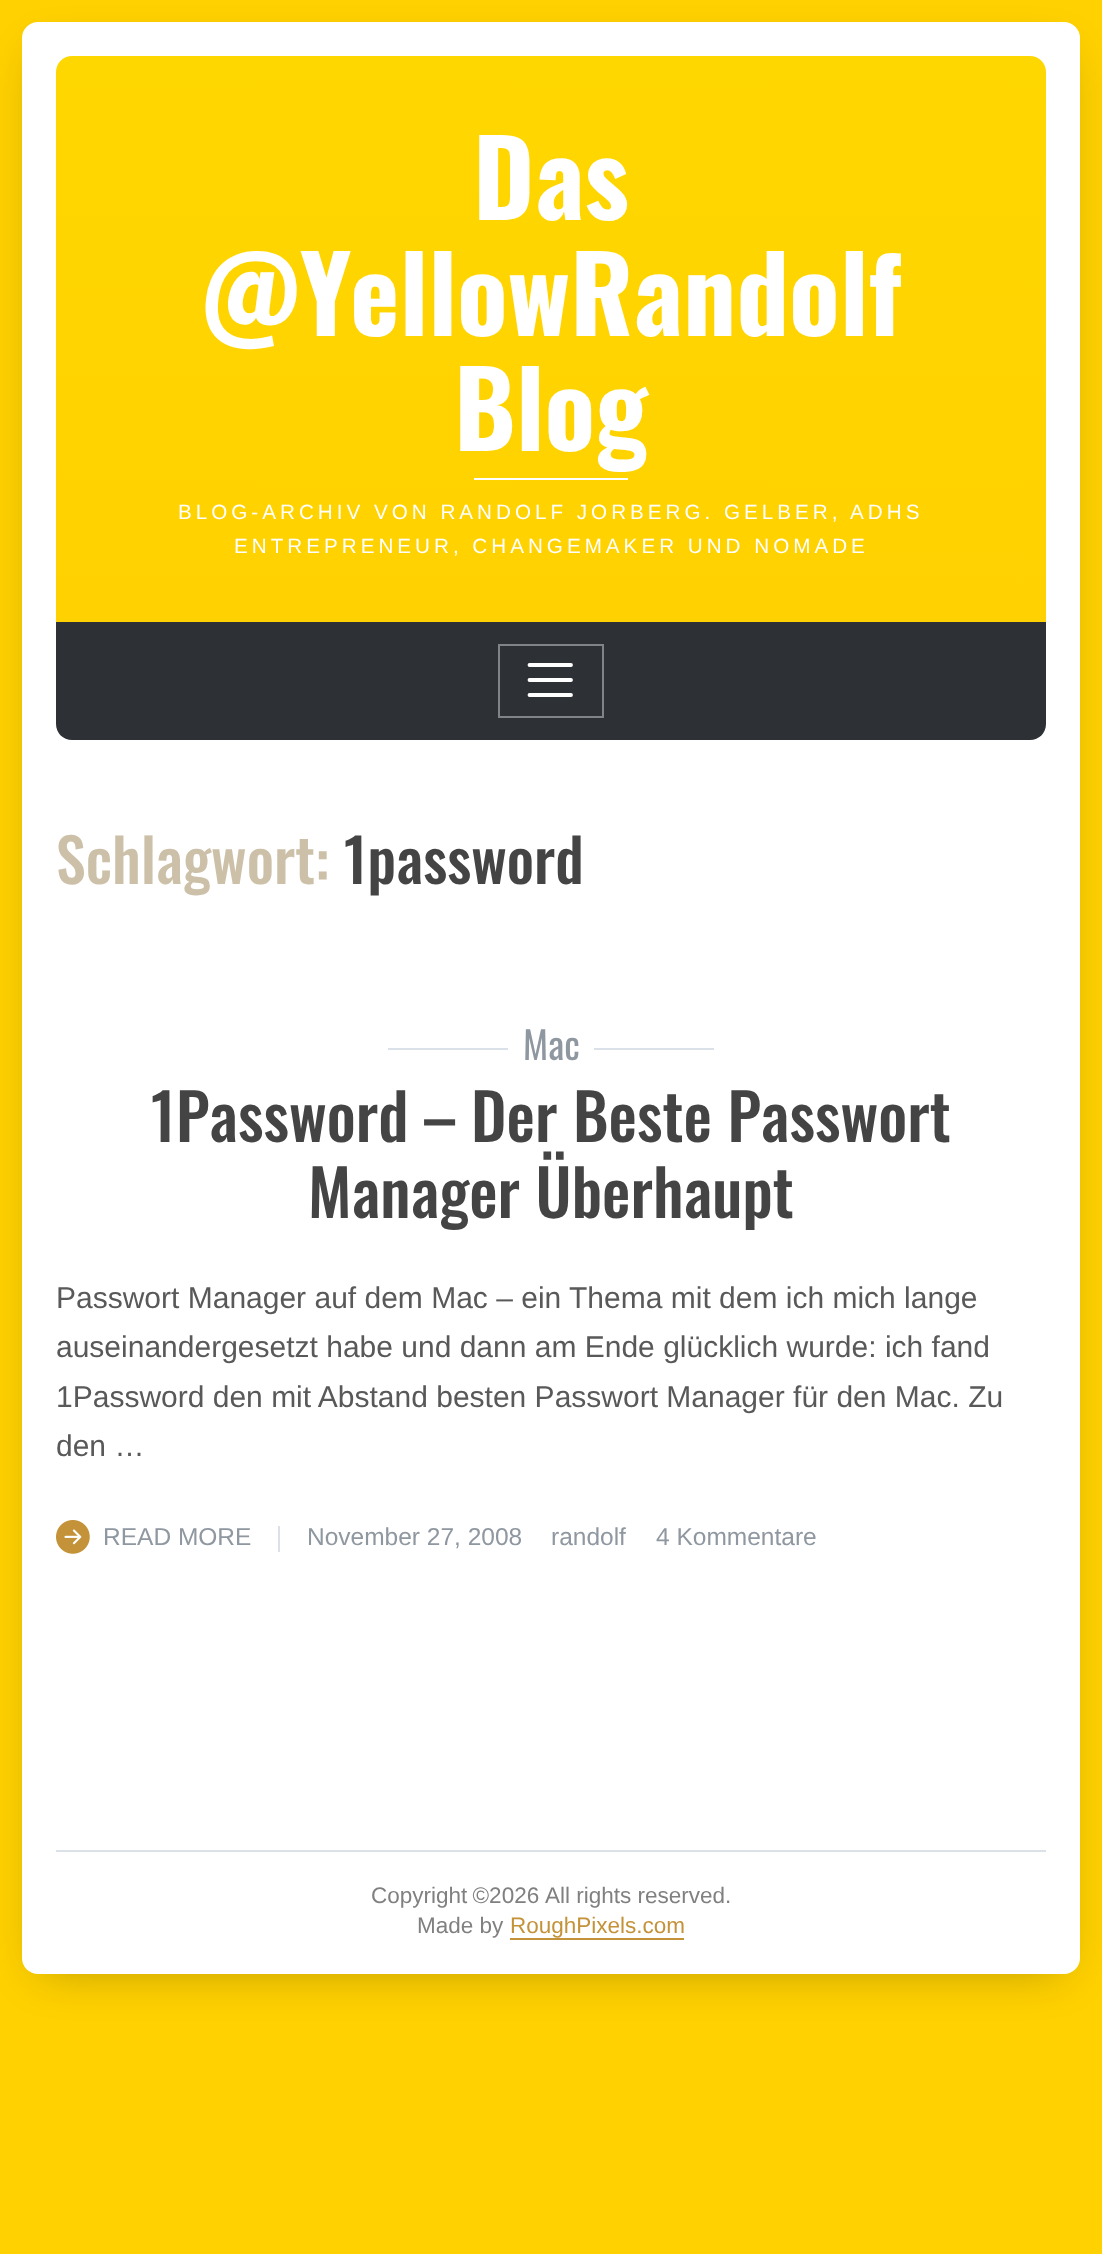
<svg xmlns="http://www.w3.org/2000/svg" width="1102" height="2254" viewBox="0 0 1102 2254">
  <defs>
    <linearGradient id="g1" gradientUnits="userSpaceOnUse" x1="551" y1="56" x2="551" y2="622"><stop offset="0" stop-color="#ffd700"/><stop offset="1" stop-color="#ffd100"/></linearGradient>
  </defs>
  <rect width="100%" height="100%" fill="#ffd100"/>
  <path d="M40 56h1022v1914H40z" fill="#00000045" filter="blur(23.5px)"/>
  <rect x="22" y="22" width="1058" height="1952" rx="16" fill="#fff"/>
  <path d="M72 56H1030C1039 56 1046 63 1046 72V622H56V72C56 63 63 56 72 56Z" fill="url(#g1)"/>
  <path d="M474 478h154v2H474z" fill="#fff"/>
  <path d="M56 622H1046V724C1046 733 1039 740 1030 740H72C63 740 56 733 56 724Z" fill="#2d3136"/>
  <path d="M499 645h104v72H499z" fill="none" stroke="#818386" stroke-width="2"/>
  <path d="M529.5 665H571M529.5 680H571M529.5 695H571" fill="none" stroke="#fff" stroke-width="3.8" stroke-linecap="round"/>
  <path d="M388 1048h120v2H388z" fill="#dae1e8"/>
  <path d="M594 1048h120v2H594z" fill="#dae1e8"/>
  <image x="56" y="1520" width="34" height="34" href="img/1.png"/>
  <path d="M278 1526h2v26H278z" fill="#dae1e8"/>
  <path d="M56 1850h990v2H56z" fill="#dae1e8"/>
  <path d="M510 1938h174v2H510z" fill="#c39239"/>
  <g font-family="Oswald" font-size="105" font-weight="bold" fill="#fff">
    <text x="473" y="220">Das</text>
    <text x="200" y="336">@YellowRandolf</text>
    <text x="454" y="451">Blog</text>
  </g>
  <g font-family="Liberation Sans" font-size="20.65" letter-spacing="4" fill="#fff">
    <text x="178" y="519">BLOG-ARCHIV VON RANDOLF JORBERG. GELBER, ADHS</text>
    <text x="234" y="553">ENTREPRENEUR, CHANGEMAKER UND NOMADE</text>
  </g>
  <text x="56" y="884" font-family="Oswald" font-size="60" font-weight="500" fill="#cdc0a9">Schlagwort:</text>
  <text x="344" y="884" font-family="Oswald" font-size="60" font-weight="500" fill="#444">1password</text>
  <text x="523" y="1060" font-family="Oswald" font-size="38" fill="#8f97a0">Mac</text>
  <g font-family="Oswald" font-size="63.75" font-weight="500" fill="#444">
    <text x="151" y="1142">1Password – Der Beste Passwort</text>
    <text x="308" y="1218">Manager Überhaupt</text>
  </g>
  <g font-family="Liberation Sans" font-size="30" fill="#595959">
    <text x="56" y="1308">Passwort Manager auf dem Mac – ein Thema mit dem ich mich lange</text>
    <text x="56" y="1357">auseinandergesetzt habe und dann am Ende glücklich wurde: ich fand</text>
    <text x="56" y="1407">1Password den mit Abstand besten Passwort Manager für den Mac. Zu</text>
    <text x="56" y="1456">den …</text>
  </g>
  <g font-family="Liberation Sans" font-size="24.5" fill="#8f97a0">
    <text x="103" y="1545">READ MORE</text>
    <text x="307" y="1545">November 27, 2008</text>
    <text x="551" y="1545">randolf</text>
    <text x="656" y="1545">4 Kommentare</text>
  </g>
  <g font-family="Liberation Sans" font-size="22.5" fill="#808080">
    <text x="371" y="1903" word-spacing="-1">Copyright ©2026</text>
    <text x="545" y="1903">All rights reserved.</text>
    <text x="417" y="1933">Made by</text>
  </g>
  <text x="510" y="1933" font-family="Liberation Sans" font-size="22.5" fill="#c39239">RoughPixels.com</text>
</svg>
